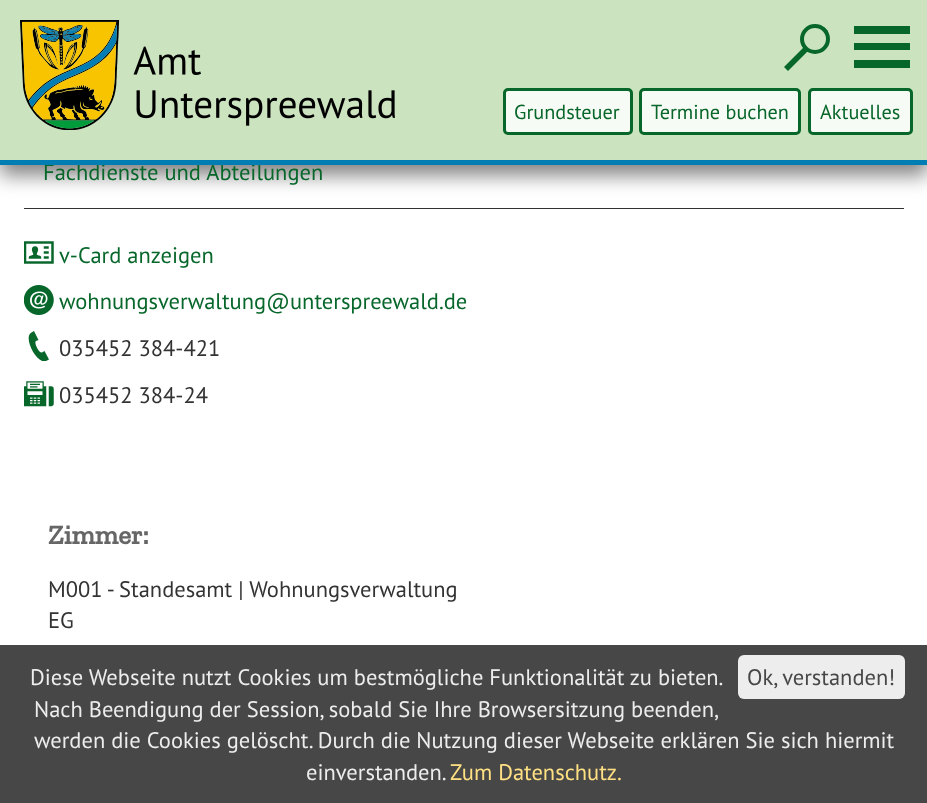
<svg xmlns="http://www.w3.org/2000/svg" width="927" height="803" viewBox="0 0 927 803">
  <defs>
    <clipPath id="clip1"><path d="M24 331h30v30H24z"/></clipPath>
  </defs>
  <rect width="100%" height="100%" fill="#fff"/>
  <path d="M0 10h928v165H0z" fill="#00000080" filter="blur(10px)"/>
  <path d="M0 0h927v160H0z" fill="#cbe3bf"/>
  <path d="M784 67L824 27L828 31L788 71Z" fill="#07662a"/>
  <circle cx="815" cy="39" r="13" fill="#cbe3bf" stroke="#07662a" stroke-width="4"/>
  <path d="M854 43h56v7H854z" fill="#07662a"/>
  <path d="M854 26h56v8H854z" fill="#07662a"/>
  <path d="M854 60h56v8H854z" fill="#07662a"/>
  <image x="20" y="20" width="375" height="110" href="img/1.png"/>
  <rect x="504.5" y="89.5" width="127" height="44" rx="3.5" fill="#f7fbf5" stroke="#07662a" stroke-width="3"/>
  <rect x="640.5" y="89.5" width="159" height="44" rx="3.5" fill="#f7fbf5" stroke="#07662a" stroke-width="3"/>
  <rect x="809.5" y="89.5" width="102" height="44" rx="3.5" fill="#f7fbf5" stroke="#07662a" stroke-width="3"/>
  <path d="M24 208h880v1H24z" fill="#333"/>
  <image x="24" y="241" width="30" height="23" href="img/2.png"/>
  <image x="24" y="285" width="30" height="30" href="img/3.png"/>
  <g clip-path="url(#clip1)">
    <path d="M49 359.5L44.5 351L42 352.5C39 353.5 33.5 342.5 36 341L38.5 340L34 331L31.5 332.5C22.5 337 37 365 46 361Z" fill="#07662a"/>
  </g>
  <image x="24" y="381" width="30" height="26" href="img/4.png"/>
  <path d="M0 645h927v158H0z" fill="#474747"/>
  <rect x="738" y="655" width="167" height="44" rx="6" fill="#ededed"/>
  <g font-family="PT Sans" font-size="20.25" fill="#07662a">
    <text x="514" y="119">Grundsteuer</text>
    <text x="651" y="119">Termine buchen</text>
    <text x="820" y="119">Aktuelles</text>
  </g>
  <text x="43" y="180" font-family="PT Sans" font-size="22.5" fill="#07662a">Fachdienste und Abteilungen</text>
  <path d="M0 160h927v5H0z" fill="#007eb4"/>
  <g font-family="PT Sans" font-size="22.5" fill="#07662a">
    <text x="59" y="263">v-Card anzeigen</text>
    <text x="59" y="309">wohnungsverwaltung@unterspreewald.de</text>
  </g>
  <g font-family="PT Sans" font-size="22.5" fill="#333">
    <text x="59" y="356">035452 384-421</text>
    <text x="59" y="403">035452 384-24</text>
  </g>
  <text x="48" y="544" font-family="Zilla Slab" font-size="27" font-weight="bold" fill="#666">Zimmer:</text>
  <g font-family="PT Sans" font-size="22.5" fill="#333">
    <text x="48" y="597">M001 - Standesamt | Wohnungsverwaltung</text>
    <text x="48" y="628">EG</text>
  </g>
  <g font-family="PT Sans" font-size="22.5" fill="#ededed">
    <text x="30" y="685">Diese Webseite nutzt Cookies um bestmögliche Funktionalität zu bieten.</text>
    <text x="34" y="717">Nach Beendigung der Session, sobald Sie Ihre Browsersitzung beenden,</text>
    <text x="34" y="748">werden die Cookies gelöscht. Durch die Nutzung dieser Webseite erklären Sie sich hiermit</text>
    <text x="306" y="780">einverstanden.</text>
  </g>
  <text x="450" y="780" font-family="PT Sans" font-size="22.5" fill="#ffe082">Zum Datenschutz.</text>
  <text x="747" y="685" font-family="PT Sans" font-size="22.5" fill="#474747">Ok, verstanden!</text>
</svg>
